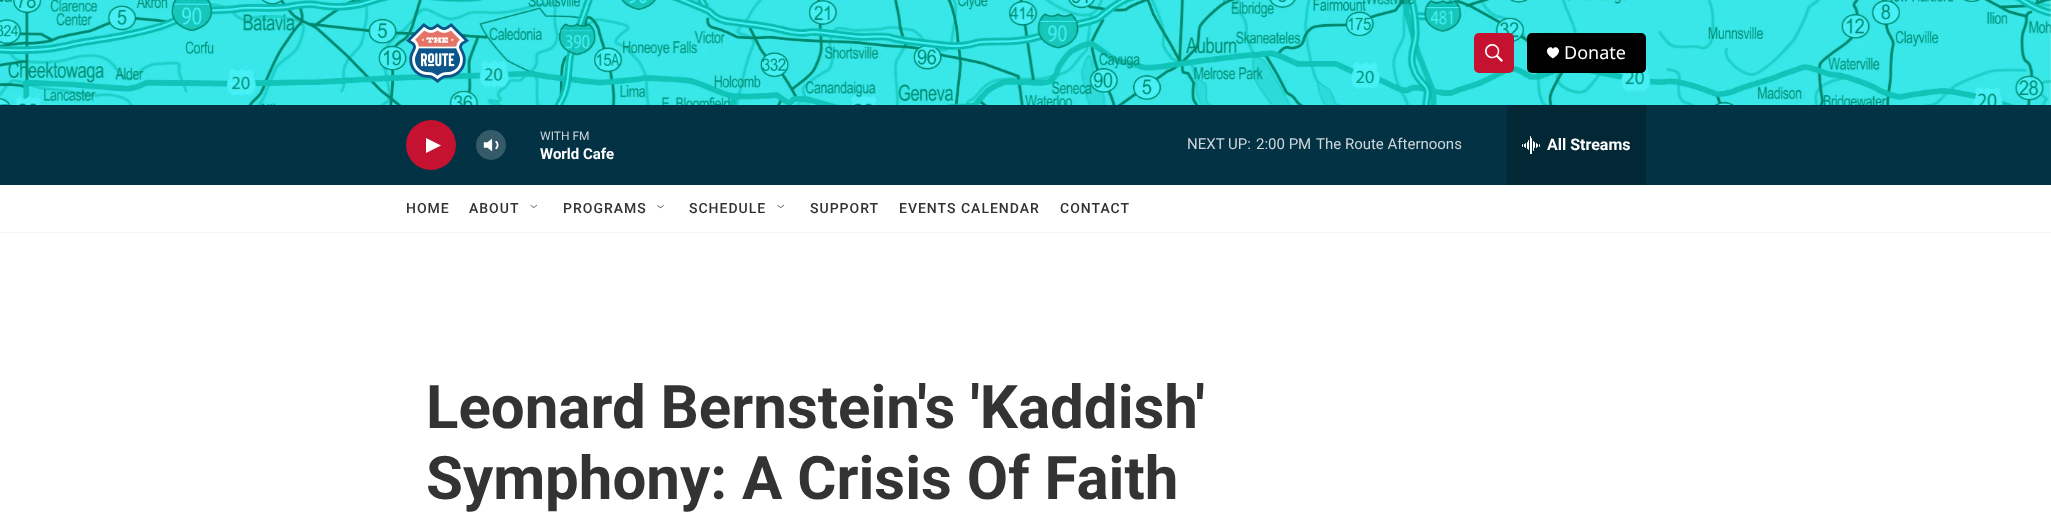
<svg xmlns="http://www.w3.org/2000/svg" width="2051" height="531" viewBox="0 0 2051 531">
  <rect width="100%" height="100%" fill="#fff"/>
  <path d="M0 232h2051v1H0z" fill="#f5f5f5"/>
  <image x="0" y="0" width="2051" height="105" href="img/1.png"/>
  <image x="406" y="23" width="63" height="60" href="img/2.png"/>
  <rect x="1474" y="33" width="40" height="40" rx="5" fill="#c41230"/>
  <image x="1485" y="44" width="18" height="18" href="img/3.png"/>
  <rect x="1527" y="33" width="119" height="40" rx="5" fill="#000"/>
  <path d="M1553 49C1551 44 1540.5 51 1553 58.5C1565.5 51 1555 44 1553 49Z" fill="#fff"/>
  <path d="M0 105h2051v80H0z" fill="#033244"/>
  <circle cx="431" cy="145" r="25" fill="#c41230"/>
  <path d="M426 138L441 145.5L426 153Z" fill="#fff"/>
  <image x="483" y="138" width="16" height="14" href="img/4.png"/>
  <circle cx="491" cy="145" r="15" fill="#ffffff33"/>
  <path d="M1507 105h139v80H1507z" fill="#022836"/>
  <image x="1522" y="136" width="18" height="18" href="img/5.png"/>
  <image x="530" y="204" width="7" height="4" href="img/6.png"/>
  <image x="657" y="205" width="7" height="4" href="img/7.png"/>
  <image x="777" y="204" width="7" height="4" href="img/8.png"/>
  <text x="1564" y="59" font-family="Noto Sans" font-size="18" fill="#fff">Donate</text>
  <text x="540" y="140" font-family="Roboto" font-size="12" fill="#cdd6da">WITH FM</text>
  <text x="540" y="159" font-family="'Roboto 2'" font-size="15" font-weight="bold" fill="#fff">World Cafe</text>
  <g font-family="Roboto" font-size="15" fill="#cdd6da">
    <text x="1187" y="149">NEXT UP:</text>
    <text x="1256" y="149">2:00 PM</text>
    <text x="1316" y="149">The Route Afternoons</text>
  </g>
  <text x="1547" y="150" font-family="'Roboto 2'" font-size="16" font-weight="bold" fill="#fff">All Streams</text>
  <g font-family="Roboto" font-size="14" font-weight="500" letter-spacing="1" fill="#333">
    <text x="406" y="213">HOME</text>
    <text x="469" y="213">ABOUT</text>
    <text x="563" y="213">PROGRAMS</text>
    <text x="689" y="213">SCHEDULE</text>
    <text x="810" y="213">SUPPORT</text>
    <text x="899" y="213">EVENTS CALENDAR</text>
    <text x="1060" y="213">CONTACT</text>
  </g>
  <g font-family="Roboto" font-size="60" font-weight="bold" fill="#333">
    <text x="426" y="428">Leonard Bernstein's 'Kaddish'</text>
    <text x="426" y="499">Symphony: A Crisis Of Faith</text>
  </g>
</svg>
